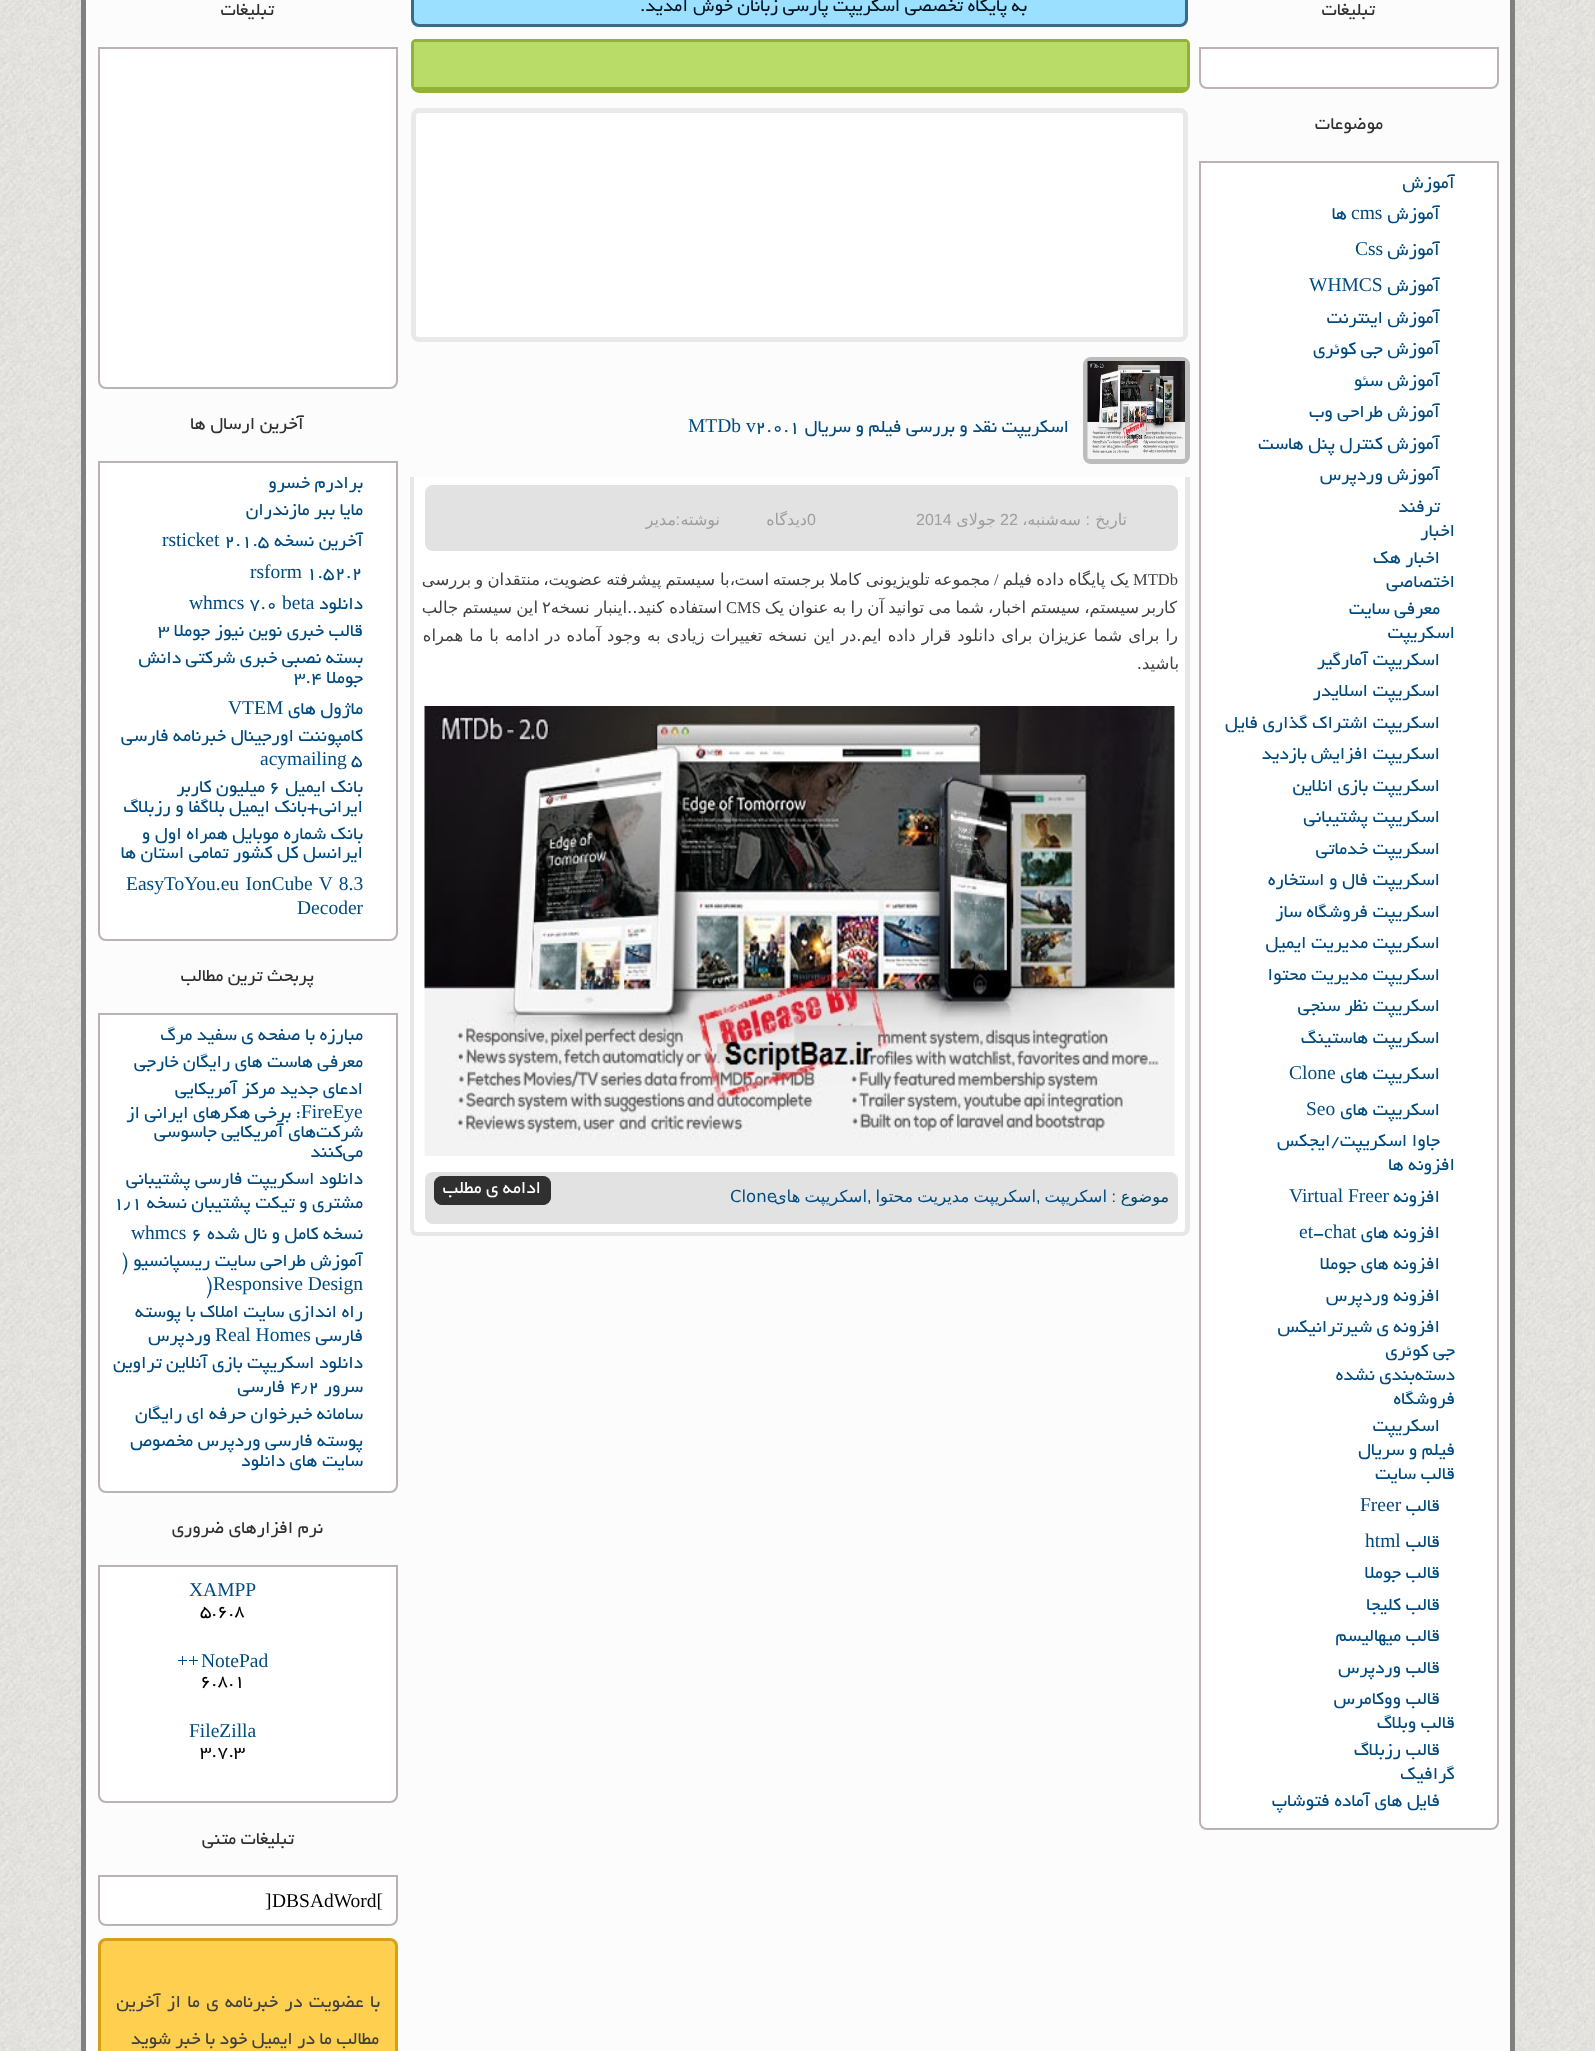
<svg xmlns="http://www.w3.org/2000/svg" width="1595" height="2051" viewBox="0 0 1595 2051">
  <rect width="100%" height="100%" fill="#fff"/>
  <image x="0" y="0" width="1595" height="2051" href="img/1.png"/>
  <path d="M83.5 -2.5h1429v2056H83.5z" fill="#fcfcfc" stroke="#808080" stroke-width="5"/>
  <path d="M1200 48H1498V81C1498 85 1495 88 1491 88H1207C1203 88 1200 85 1200 81Z" fill="#fff" stroke="#bcb1b5" stroke-width="2"/>
  <path d="M1200 162H1498V1822C1498 1826 1495 1829 1491 1829H1207C1203 1829 1200 1826 1200 1822Z" fill="#fff" stroke="#bcb1b5" stroke-width="2"/>
  <rect x="412.5" y="-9.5" width="774" height="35" rx="6.5" fill="#9be0ff" stroke="#366e87" stroke-width="3"/>
  <path d="M416 40.5H1185C1187 40.5 1188.5 42 1188.5 44V85C1188.5 88.5 1185.5 91.5 1182 91.5H419C415.5 91.5 412.5 88.5 412.5 85V44C412.5 42 414 40.5 416 40.5Z" fill="none" stroke="#8fb237" stroke-width="3"/>
  <path d="M414 42h773v45H414z" fill="#b9db67"/>
  <path d="M414 87h773v3H414z" fill="#8fb237"/>
  <rect x="413.5" y="110.5" width="772" height="229" rx="5.5" fill="#fff" stroke="#e9e9e9" stroke-width="5"/>
  <rect x="1085.5" y="359.5" width="102" height="102" rx="5.5" fill="#f8f8f8" stroke="#bcbcbc" stroke-width="5"/>
  <image x="1087" y="361" width="98" height="98" href="img/2.png"/>
  <path d="M410 477H1190V1228C1190 1232.5 1186.5 1236 1182 1236H418C413.5 1236 410 1232.5 410 1228Z" fill="#fff"/>
  <path d="M410 477H1190V1228C1190 1233 1186 1236 1182 1236H417C413 1236 410 1233 410 1228ZM414 477H1185V1228C1185 1230 1184 1232 1182 1232H417C415 1232 414 1230 414 1228Z" fill="#e7e7e7" fill-rule="evenodd"/>
  <rect x="425" y="485" width="753" height="66" rx="8" fill="#ededed"/>
  <path d="M433 485H1170C1174 485 1178 489 1178 493V543C1178 547 1174 551 1170 551H433C429 551 425 547 425 543V493C425 489 429 485 433 485Z" fill="#e2e2e2"/>
  <image x="424" y="706" width="751" height="450" href="img/3.png"/>
  <rect x="425" y="1172" width="753" height="52" rx="8" fill="#ededed"/>
  <path d="M433 1172H1170C1174 1172 1178 1176 1178 1180V1216C1178 1220 1174 1224 1170 1224H433C429 1224 425 1220 425 1216V1180C425 1176 429 1172 433 1172Z" fill="#e2e2e2"/>
  <rect x="434" y="1176" width="117" height="29" rx="8" fill="#646464"/>
  <path d="M442 1176H543C547 1176 551 1180 551 1184V1197C551 1201 547 1205 543 1205H442C438 1205 434 1201 434 1197V1184C434 1180 438 1176 442 1176Z" fill="#303030"/>
  <path d="M99 48H397V381C397 385 394 388 390 388H106C102 388 99 385 99 381Z" fill="#fff" stroke="#bcb1b5" stroke-width="2"/>
  <path d="M99 462H397V933C397 937 394 940 390 940H106C102 940 99 937 99 933Z" fill="#fff" stroke="#bcb1b5" stroke-width="2"/>
  <path d="M99 1014H397V1485C397 1489 394 1492 390 1492H106C102 1492 99 1489 99 1485Z" fill="#fff" stroke="#bcb1b5" stroke-width="2"/>
  <path d="M99 1566H397V1795C397 1799 394 1802 390 1802H106C102 1802 99 1799 99 1795Z" fill="#fff" stroke="#bcb1b5" stroke-width="2"/>
  <path d="M99 1876H397V1918C397 1922 394 1925 390 1925H106C102 1925 99 1922 99 1918Z" fill="#fff" stroke="#bcb1b5" stroke-width="2"/>
  <rect x="99.5" y="1939.5" width="297" height="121" rx="6.5" fill="#ffd04f" stroke="#d8a115" stroke-width="3"/>
  <g font-family="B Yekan" font-size="19.5" direction="rtl" fill="#303030">
    <text x="1375" y="15">تبلیغات</text>
    <text x="1383" y="129">موضوعات</text>
  </g>
  <g font-family="B Yekan" font-size="19.5" direction="rtl" fill="#004a7f">
    <text x="1455" y="188">آموزش</text>
    <text x="1440" y="219">آموزش</text>
  </g>
  <text x="1351" y="219" font-family="Liberation Serif" font-size="19.5" fill="#004a7f">cms</text>
  <g font-family="B Yekan" font-size="19.5" direction="rtl" fill="#004a7f">
    <text x="1347" y="219">ها</text>
    <text x="1440" y="255">آموزش</text>
  </g>
  <text x="1355" y="255" font-family="Liberation Serif" font-size="19.5" fill="#004a7f">Css</text>
  <text x="1440" y="291" font-family="B Yekan" font-size="19.5" direction="rtl" fill="#004a7f">آموزش</text>
  <text x="1309" y="291" font-family="Liberation Serif" font-size="19.5" fill="#004a7f">WHMCS</text>
  <g font-family="B Yekan" font-size="19.5" direction="rtl" fill="#004a7f">
    <text x="1440" y="323">آموزش اینترنت</text>
    <text x="1440" y="354">آموزش جی کوئری</text>
    <text x="1440" y="386">آموزش سئو</text>
    <text x="1440" y="417">آموزش طراحی وب</text>
    <text x="1440" y="449">آموزش کنترل پنل هاست</text>
    <text x="1440" y="480">آموزش وردپرس</text>
    <text x="1440" y="512">ترفند</text>
    <text x="1455" y="536">اخبار</text>
    <text x="1440" y="563">اخبار هک</text>
    <text x="1455" y="587">اختصاصی</text>
    <text x="1440" y="614">معرفی سایت</text>
    <text x="1455" y="638">اسکریپت</text>
    <text x="1440" y="665">اسکریپت آمارگیر</text>
    <text x="1440" y="696">اسکریپت اسلایدر</text>
    <text x="1440" y="728">اسکریپت اشتراك گذاري فايل</text>
    <text x="1440" y="759">اسکریپت افزایش بازدید</text>
    <text x="1440" y="791">اسکریپت بازي انلاين</text>
    <text x="1440" y="822">اسکریپت پشتیبانی</text>
    <text x="1440" y="854">اسکریپت خدماتی</text>
    <text x="1440" y="885">اسکریپت فال و استخاره</text>
    <text x="1440" y="917">اسکریپت فروشگاه ساز</text>
    <text x="1440" y="948">اسکریپت مدیریت ایمیل</text>
    <text x="1440" y="980">اسکریپت مدیریت محتوا</text>
    <text x="1440" y="1011">اسکریپت نظر سنجی</text>
    <text x="1440" y="1043">اسکریپت هاستینگ</text>
    <text x="1440" y="1079">اسکریپت های</text>
  </g>
  <text x="1289" y="1079" font-family="Liberation Serif" font-size="19.5" fill="#004a7f">Clone</text>
  <text x="1440" y="1115" font-family="B Yekan" font-size="19.5" direction="rtl" fill="#004a7f">اسکریپت های</text>
  <text x="1306" y="1115" font-family="Liberation Serif" font-size="19.5" fill="#004a7f">Seo</text>
  <g font-family="B Yekan" font-size="19.5" direction="rtl" fill="#004a7f">
    <text x="1440" y="1146">جاوا اسکریپت/ایجکس</text>
    <text x="1455" y="1170">افزونه ها</text>
    <text x="1440" y="1202">افزونه</text>
  </g>
  <text x="1289" y="1202" font-family="Liberation Serif" font-size="19.5" fill="#004a7f">Virtual Freer</text>
  <text x="1440" y="1238" font-family="B Yekan" font-size="19.5" direction="rtl" fill="#004a7f">افزونه های</text>
  <text x="1324" y="1238" font-family="Liberation Serif" font-size="19.5" fill="#004a7f">chat</text>
  <text x="1313" y="1238" font-family="B Yekan" font-size="19.5" fill="#004a7f">-</text>
  <text x="1299" y="1238" font-family="Liberation Serif" font-size="19.5" fill="#004a7f">et</text>
  <g font-family="B Yekan" font-size="19.5" direction="rtl" fill="#004a7f">
    <text x="1440" y="1269">افزونه های جوملا</text>
    <text x="1440" y="1301">افزونه وردپرس</text>
    <text x="1440" y="1332">افزونه ی شیرترانیکس</text>
    <text x="1455" y="1356">جی کوئری</text>
    <text x="1455" y="1380">دسته‌بندی نشده</text>
    <text x="1455" y="1404">فروشگاه</text>
    <text x="1440" y="1431">اسکریپت</text>
    <text x="1455" y="1455">فیلم و سریال</text>
    <text x="1455" y="1479">قالب سایت</text>
    <text x="1440" y="1511">قالب</text>
  </g>
  <text x="1360" y="1511" font-family="Liberation Serif" font-size="19.5" fill="#004a7f">Freer</text>
  <text x="1440" y="1547" font-family="B Yekan" font-size="19.5" direction="rtl" fill="#004a7f">قالب</text>
  <text x="1365" y="1547" font-family="Liberation Serif" font-size="19.5" fill="#004a7f">html</text>
  <g font-family="B Yekan" font-size="19.5" direction="rtl" fill="#004a7f">
    <text x="1440" y="1578">قالب جوملا</text>
    <text x="1440" y="1610">قالب کلیجا</text>
    <text x="1440" y="1641">قالب میهالیسم</text>
    <text x="1440" y="1673">قالب وردپرس</text>
    <text x="1440" y="1704">قالب ووکامرس</text>
    <text x="1455" y="1728">قالب وبلاگ</text>
    <text x="1440" y="1755">قالب رزبلاگ</text>
    <text x="1455" y="1779">گرافیک</text>
    <text x="1440" y="1806">فایل های آماده فتوشاپ</text>
  </g>
  <text x="1027" y="11" font-family="B Yekan" font-size="19.5" direction="rtl" fill="#001321">به پایگاه تخصصی اسکریپت پارسی زبانان خوش آمدید.</text>
  <text x="1069" y="432" font-family="B Yekan" font-size="19.5" direction="rtl" fill="#004a7f">اسکریپت نقد و بررسی فیلم و سریال</text>
  <text x="755" y="432" font-family="B Yekan" font-size="19.5" fill="#004a7f">2.0.1</text>
  <text x="688" y="432" font-family="Liberation Serif" font-size="19.5" fill="#004a7f">MTDb v</text>
  <text x="1127" y="525" font-family="DejaVu Sans" font-size="16" direction="rtl" fill="#9e9e9e">تاریخ</text>
  <text x="1090" y="525" font-family="Liberation Sans" font-size="16" direction="rtl" fill="#9e9e9e">:</text>
  <g font-family="DejaVu Sans" font-size="16" direction="rtl" fill="#9e9e9e">
    <text x="1081" y="525">سه</text>
    <text x="1059" y="525">شنبه،</text>
  </g>
  <text x="1000" y="525" font-family="Liberation Sans" font-size="16" fill="#9e9e9e">22</text>
  <text x="996" y="525" font-family="DejaVu Sans" font-size="16" direction="rtl" fill="#9e9e9e">جولای</text>
  <g font-family="Liberation Sans" font-size="16" fill="#9e9e9e">
    <text x="916" y="525">2014</text>
    <text x="807" y="525">0</text>
  </g>
  <g font-family="DejaVu Sans" font-size="16" direction="rtl" fill="#9e9e9e">
    <text x="807" y="525">دیدگاه</text>
    <text x="720" y="525">نوشته</text>
  </g>
  <text x="680" y="525" font-family="Liberation Sans" font-size="16" direction="rtl" fill="#9e9e9e">:</text>
  <text x="676" y="525" font-family="DejaVu Sans" font-size="16" direction="rtl" fill="#9e9e9e">مدیر</text>
  <text x="1133" y="585" font-family="Liberation Serif" font-size="16.5" fill="#404040">MTDb</text>
  <g font-family="DejaVu Sans" font-size="16.5" direction="rtl" fill="#404040">
    <text x="1129" y="585" word-spacing="-1">یک پایگاه داده</text>
    <text x="1032" y="585">فیلم</text>
  </g>
  <text x="994" y="585" font-family="Liberation Serif" font-size="16.5" fill="#404040">/</text>
  <g font-family="DejaVu Sans" font-size="16.5" direction="rtl" fill="#404040">
    <text x="990" y="585" word-spacing="-1">مجموعه تلویزیونی</text>
    <text x="861" y="585" word-spacing="-1">کاملا برجسته</text>
    <text x="769" y="585">است</text>
    <text x="735" y="585">،با</text>
    <text x="715" y="585" word-spacing="-1">سیستم پیشرفته</text>
    <text x="602" y="585">عضویت،</text>
    <text x="540" y="585" word-spacing="-1">منتقدان و</text>
    <text x="471" y="585">بررسی</text>
    <text x="1177" y="613">کاربر</text>
    <text x="1139" y="613">سیستم،</text>
    <text x="1080" y="613">سیستم</text>
    <text x="1026" y="613">اخبار،</text>
    <text x="984" y="613">شما</text>
    <text x="951" y="613" word-spacing="-1">می توانید آن را</text>
    <text x="846" y="613" word-spacing="-1">به عنوان یک</text>
  </g>
  <text x="726" y="613" font-family="Liberation Serif" font-size="16.5" fill="#404040">CMS</text>
  <g font-family="DejaVu Sans" font-size="16.5" direction="rtl" fill="#404040">
    <text x="722" y="613">استفاده</text>
    <text x="664" y="613">کنید..اینبار نسخه</text>
  </g>
  <text x="542" y="613" font-family="DejaVu Sans" font-size="16.5" fill="#404040">۲</text>
  <g font-family="DejaVu Sans" font-size="16.5" direction="rtl" fill="#404040">
    <text x="538" y="613" word-spacing="-1">این سیستم جالب</text>
    <text x="1178" y="641" word-spacing="0.8">را برای شما عزیزان برای دانلود قرار داده ایم.در این نسخه تغییرات زیادی به وجود آماده در ادامه با ما همراه</text>
    <text x="1179" y="669">باشید.</text>
  </g>
  <text x="1169" y="1202" font-family="DejaVu Sans" font-size="16" direction="rtl" fill="#004263">موضوع</text>
  <text x="1116" y="1202" font-family="Liberation Sans" font-size="16" direction="rtl" fill="#004263">:</text>
  <text x="1107" y="1202" font-family="DejaVu Sans" font-size="16.5" direction="rtl" fill="#004a7f">اسکریپت</text>
  <text x="1036" y="1202" font-family="Liberation Sans" font-size="16" fill="#004263">,</text>
  <text x="1036" y="1202" word-spacing="-1" font-family="DejaVu Sans" font-size="16.5" direction="rtl" fill="#004a7f">اسکریپت مدیریت محتوا</text>
  <text x="867" y="1202" font-family="Liberation Sans" font-size="16" fill="#004263">,</text>
  <text x="730" y="1202" font-family="DejaVu Sans" font-size="16.5" fill="#004a7f">Clone</text>
  <text x="867" y="1202" word-spacing="-1" font-family="DejaVu Sans" font-size="16.5" direction="rtl" fill="#004a7f">اسکریپت های</text>
  <text x="541" y="1193" font-family="B Yekan" font-size="19.5" direction="rtl" fill="#fff">ادامه ی مطلب</text>
  <g font-family="B Yekan" font-size="19.5" direction="rtl" fill="#303030">
    <text x="274" y="15">تبلیغات</text>
    <text x="304" y="429">آخرین ارسال ها</text>
  </g>
  <g font-family="B Yekan" font-size="19.5" direction="rtl" fill="#004a7f">
    <text x="363" y="488">برادرم خسرو</text>
    <text x="363" y="515">مایا ببر مازندران</text>
    <text x="363" y="546">آخرین نسخه</text>
  </g>
  <text x="224" y="546" font-family="B Yekan" font-size="19.5" fill="#004a7f">2.1.5</text>
  <text x="162" y="546" font-family="Liberation Serif" font-size="19.5" fill="#004a7f">rsticket</text>
  <text x="306" y="578" font-family="B Yekan" font-size="19.5" fill="#004a7f">1.52.2</text>
  <text x="250" y="578" font-family="Liberation Serif" font-size="19.5" fill="#004a7f">rsform</text>
  <text x="363" y="609" font-family="B Yekan" font-size="19.5" direction="rtl" fill="#004a7f">دانلود</text>
  <text x="282" y="609" font-family="Liberation Serif" font-size="19.5" fill="#004a7f">beta</text>
  <text x="249" y="609" font-family="B Yekan" font-size="19.5" fill="#004a7f">7.0</text>
  <text x="189" y="609" font-family="Liberation Serif" font-size="19.5" fill="#004a7f">whmcs</text>
  <text x="363" y="636" font-family="B Yekan" font-size="19.5" direction="rtl" fill="#004a7f">قالب خبری نوین نیوز جوملا</text>
  <text x="158" y="636" font-family="B Yekan" font-size="19.5" fill="#004a7f">3</text>
  <g font-family="B Yekan" font-size="19.5" direction="rtl" fill="#004a7f">
    <text x="363" y="663">بسته نصبی خبری شرکتی دانش</text>
    <text x="363" y="683">جوملا</text>
  </g>
  <text x="294" y="683" font-family="B Yekan" font-size="19.5" fill="#004a7f">3.4</text>
  <text x="363" y="714" font-family="B Yekan" font-size="19.5" direction="rtl" fill="#004a7f">ماژول های</text>
  <text x="228" y="714" font-family="Liberation Serif" font-size="19.5" fill="#004a7f">VTEM</text>
  <text x="363" y="741" font-family="B Yekan" font-size="19.5" direction="rtl" fill="#004a7f">کامپوننت اورجینال خبرنامه فارسی</text>
  <text x="351" y="765" font-family="B Yekan" font-size="19.5" fill="#004a7f">5</text>
  <text x="260" y="765" font-family="Liberation Serif" font-size="19.5" fill="#004a7f">acymailing</text>
  <text x="363" y="792" font-family="B Yekan" font-size="19.5" direction="rtl" fill="#004a7f">بانک ایمیل</text>
  <text x="269" y="792" font-family="B Yekan" font-size="19.5" fill="#004a7f">6</text>
  <g font-family="B Yekan" font-size="19.5" direction="rtl" fill="#004a7f">
    <text x="265" y="792">میلیون کاربر</text>
    <text x="363" y="812">ایرانی+بانک ایمیل بلاگفا و رزبلاگ</text>
    <text x="363" y="839">بانک شماره موبایل همراه اول و</text>
    <text x="363" y="858">ایرانسل کل کشور تمامی استان ها</text>
  </g>
  <g font-family="Liberation Serif" font-size="19.5" fill="#004a7f">
    <text x="126" y="890" word-spacing="1.5">EasyToYou.eu IonCube V 8.3</text>
    <text x="297" y="914">Decoder</text>
  </g>
  <text x="314" y="981" font-family="B Yekan" font-size="19.5" direction="rtl" fill="#303030">پربحث ترین مطالب</text>
  <g font-family="B Yekan" font-size="19.5" direction="rtl" fill="#004a7f">
    <text x="363" y="1040">مبارزه با صفحه ی سفید مرگ</text>
    <text x="363" y="1067">معرفی هاست های رایگان خارجی</text>
    <text x="363" y="1094">ادعای جدید مرکز آمریکایی</text>
  </g>
  <text x="301" y="1118" font-family="Liberation Serif" font-size="19.5" fill="#004a7f">FireEye</text>
  <g font-family="B Yekan" font-size="19.5" direction="rtl" fill="#004a7f">
    <text x="301" y="1118">: برخی هکرهای ایرانی از</text>
    <text x="363" y="1137">شرکت‌های آمریکایی جاسوسی</text>
    <text x="363" y="1157">می‌کنند</text>
    <text x="363" y="1184">دانلود اسکریپت فارسی پشتیبانی</text>
    <text x="363" y="1208">مشتری و تیکت پشتیبان نسخه</text>
  </g>
  <text x="131" y="1208" font-family="B Yekan" font-size="19.5" fill="#004a7f">۱</text>
  <text x="124" y="1208" font-family="DejaVu Sans" font-size="19.5" fill="#004a7f">٫</text>
  <text x="113" y="1208" font-family="B Yekan" font-size="19.5" fill="#004a7f">۱</text>
  <text x="363" y="1239" font-family="B Yekan" font-size="19.5" direction="rtl" fill="#004a7f">نسخه کامل و نال شده</text>
  <text x="191" y="1239" font-family="B Yekan" font-size="19.5" fill="#004a7f">6</text>
  <text x="131" y="1239" font-family="Liberation Serif" font-size="19.5" fill="#004a7f">whmcs</text>
  <text x="363" y="1266" font-family="B Yekan" font-size="19.5" direction="rtl" fill="#004a7f">آموزش طراحی سایت ریسپانسیو (</text>
  <text x="213" y="1290" font-family="Liberation Serif" font-size="19.5" fill="#004a7f">Responsive Design</text>
  <text x="206" y="1290" font-family="B Yekan" font-size="19.5" fill="#004a7f">)</text>
  <g font-family="B Yekan" font-size="19.5" direction="rtl" fill="#004a7f">
    <text x="363" y="1317">راه اندازی سایت املاک با پوسته</text>
    <text x="363" y="1341">فارسی</text>
  </g>
  <text x="215" y="1341" font-family="Liberation Serif" font-size="19.5" fill="#004a7f">Real Homes</text>
  <g font-family="B Yekan" font-size="19.5" direction="rtl" fill="#004a7f">
    <text x="211" y="1341">وردپرس</text>
    <text x="363" y="1368">دانلود اسکریپت بازی آنلاین تراوین</text>
    <text x="363" y="1392">سرور</text>
  </g>
  <text x="308" y="1392" font-family="B Yekan" font-size="19.5" fill="#004a7f">۲</text>
  <text x="301" y="1392" font-family="DejaVu Sans" font-size="19.5" fill="#004a7f">٫</text>
  <text x="290" y="1392" font-family="B Yekan" font-size="19.5" fill="#004a7f">۴</text>
  <g font-family="B Yekan" font-size="19.5" direction="rtl" fill="#004a7f">
    <text x="285" y="1392">فارسی</text>
    <text x="363" y="1419">سامانه خبرخوان حرفه ای رایگان</text>
    <text x="363" y="1446">پوسته فارسی وردپرس مخصوص</text>
    <text x="363" y="1466">سایت های دانلود</text>
  </g>
  <text x="323" y="1533" font-family="B Yekan" font-size="19.5" direction="rtl" fill="#303030">نرم افزارهای ضروری</text>
  <text x="189" y="1596" font-family="Liberation Serif" font-size="19.5" fill="#004a7f">XAMPP</text>
  <text x="200" y="1616" font-family="B Yekan" font-size="19.5" fill="#000">5.6.8</text>
  <g font-family="Liberation Serif" font-size="19.5" fill="#004a7f">
    <text x="201" y="1667">NotePad</text>
    <text x="177" y="1667">++</text>
  </g>
  <text x="200" y="1686" font-family="B Yekan" font-size="19.5" fill="#000">6.8.1</text>
  <text x="189" y="1737" font-family="Liberation Serif" font-size="19.5" fill="#004a7f">FileZilla</text>
  <text x="200" y="1757" font-family="B Yekan" font-size="19.5" fill="#000">3.7.3</text>
  <text x="294" y="1844" font-family="B Yekan" font-size="19.5" direction="rtl" fill="#303030">تبلیغات متنی</text>
  <g font-family="Liberation Serif" font-size="19.5" fill="#000">
    <text x="272" y="1907">DBSAdWord[</text>
    <text x="265" y="1907">]</text>
  </g>
  <g font-family="B Yekan" font-size="19.5" direction="rtl" fill="#404040">
    <text x="380" y="2007" word-spacing="2">با عضویت در خبرنامه ی ما از آخرین</text>
    <text x="379" y="2044">مطالب ما در ایمیل خود با خبر شوید</text>
  </g>
</svg>
